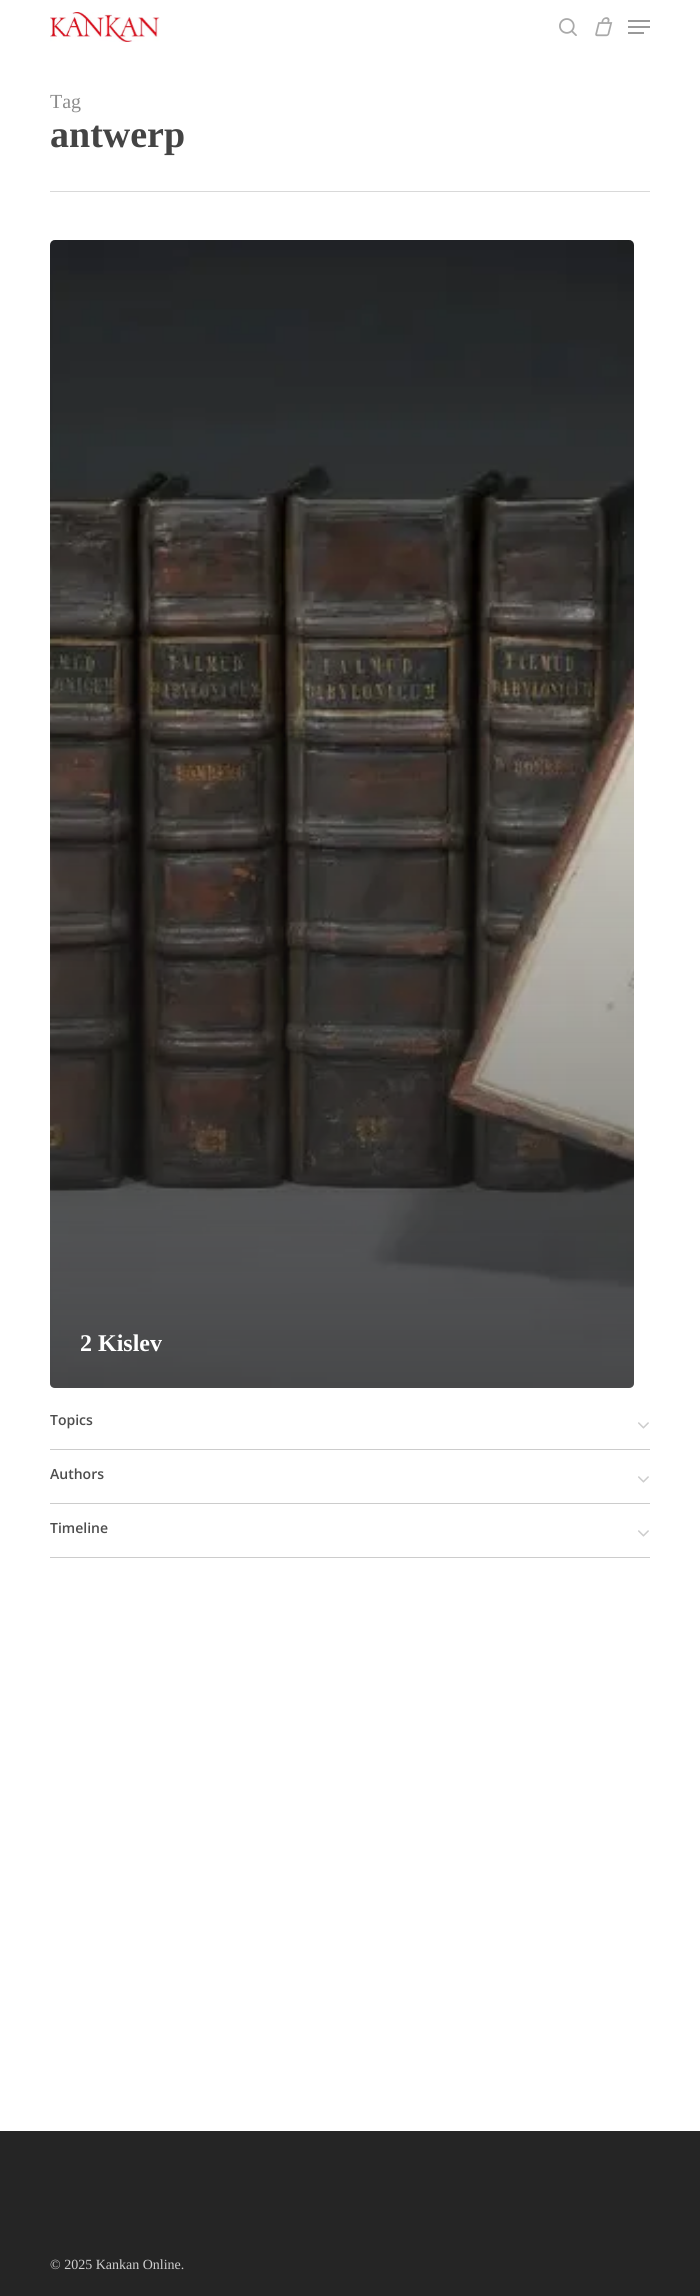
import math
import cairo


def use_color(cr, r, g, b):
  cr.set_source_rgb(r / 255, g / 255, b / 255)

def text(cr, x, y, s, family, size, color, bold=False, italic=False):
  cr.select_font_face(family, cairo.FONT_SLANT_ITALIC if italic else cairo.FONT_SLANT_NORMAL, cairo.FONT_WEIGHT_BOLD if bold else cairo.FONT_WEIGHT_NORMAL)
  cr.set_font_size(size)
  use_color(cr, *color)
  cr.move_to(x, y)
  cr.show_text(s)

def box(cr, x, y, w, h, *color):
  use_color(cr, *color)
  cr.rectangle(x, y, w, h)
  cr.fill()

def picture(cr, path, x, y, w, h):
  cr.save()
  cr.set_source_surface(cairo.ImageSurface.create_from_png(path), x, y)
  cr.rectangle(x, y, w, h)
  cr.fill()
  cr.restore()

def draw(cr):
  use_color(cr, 255, 255, 255)
  cr.paint()
  picture(cr, "img_01.png", 50, 12, 110, 30)
  picture(cr, "img_02.png", 559, 18, 18, 18)
  picture(cr, "img_03.png", 595, 17, 18, 20)
  box(cr, 628, 20, 22, 2, 153, 153, 153)
  box(cr, 628, 32, 16, 2, 153, 153, 153)
  box(cr, 628, 26, 22, 2, 153, 153, 153)
  box(cr, 50, 191, 600, 1, 217, 217, 217)
  picture(cr, "img_04.png", 50, 240, 584, 1148)
  gradient = cairo.LinearGradient(343, 528, 344, 1394)
  gradient.add_color_stop_rgba(0, 0.137, 0.137, 0.137, 0)
  gradient.add_color_stop_rgba(1, 0.137, 0.137, 0.137, 0.65)
  cr.set_source(gradient)
  cr.new_path()
  cr.move_to(50, 528)
  cr.line_to(634, 528)
  cr.line_to(634, 1383)
  cr.curve_to(634, 1386, 632, 1388, 629, 1388)
  cr.line_to(55, 1388)
  cr.curve_to(52, 1388, 50, 1386, 50, 1383)
  cr.close_path()
  cr.fill()
  box(cr, 50, 1449, 600, 1, 204, 204, 204)
  picture(cr, "img_05.png", 638, 1422, 11, 7)
  box(cr, 50, 1503, 600, 1, 204, 204, 204)
  picture(cr, "img_05.png", 638, 1476, 11, 7)
  box(cr, 50, 1557, 600, 1, 204, 204, 204)
  picture(cr, "img_05.png", 638, 1530, 11, 7)
  box(cr, 0, 2131, 700, 165, 37, 37, 37)
  text(cr, 50, 108, "Tag", "Liberation Serif", 20, (140, 140, 140))
  text(cr, 50, 147, "antwerp", "Liberation Serif", 38, (68, 68, 68), bold=True)
  text(cr, 80, 1351, "2 Kislev", "Liberation Serif", 24, (255, 255, 255), bold=True)
  text(cr, 50, 1425, "Topics", "Open Sans SemiBold", 14, (77, 77, 77))
  text(cr, 50, 1479, "Authors", "Open Sans SemiBold", 14, (77, 77, 77))
  text(cr, 50, 1533, "Timeline", "Open Sans SemiBold", 14, (77, 77, 77))
  text(cr, 50, 2269, "© 2025 Kankan Online.", "Liberation Serif", 14, (207, 207, 207))


surface = cairo.ImageSurface(cairo.FORMAT_RGB24, 700, 2296)
cr = cairo.Context(surface)
options = cairo.FontOptions()
options.set_hint_metrics(cairo.HINT_METRICS_OFF)
options.set_hint_style(cairo.HINT_STYLE_NONE)
cr.set_font_options(options)
cr.set_miter_limit(4)
draw(cr)
surface.write_to_png("out.png")
